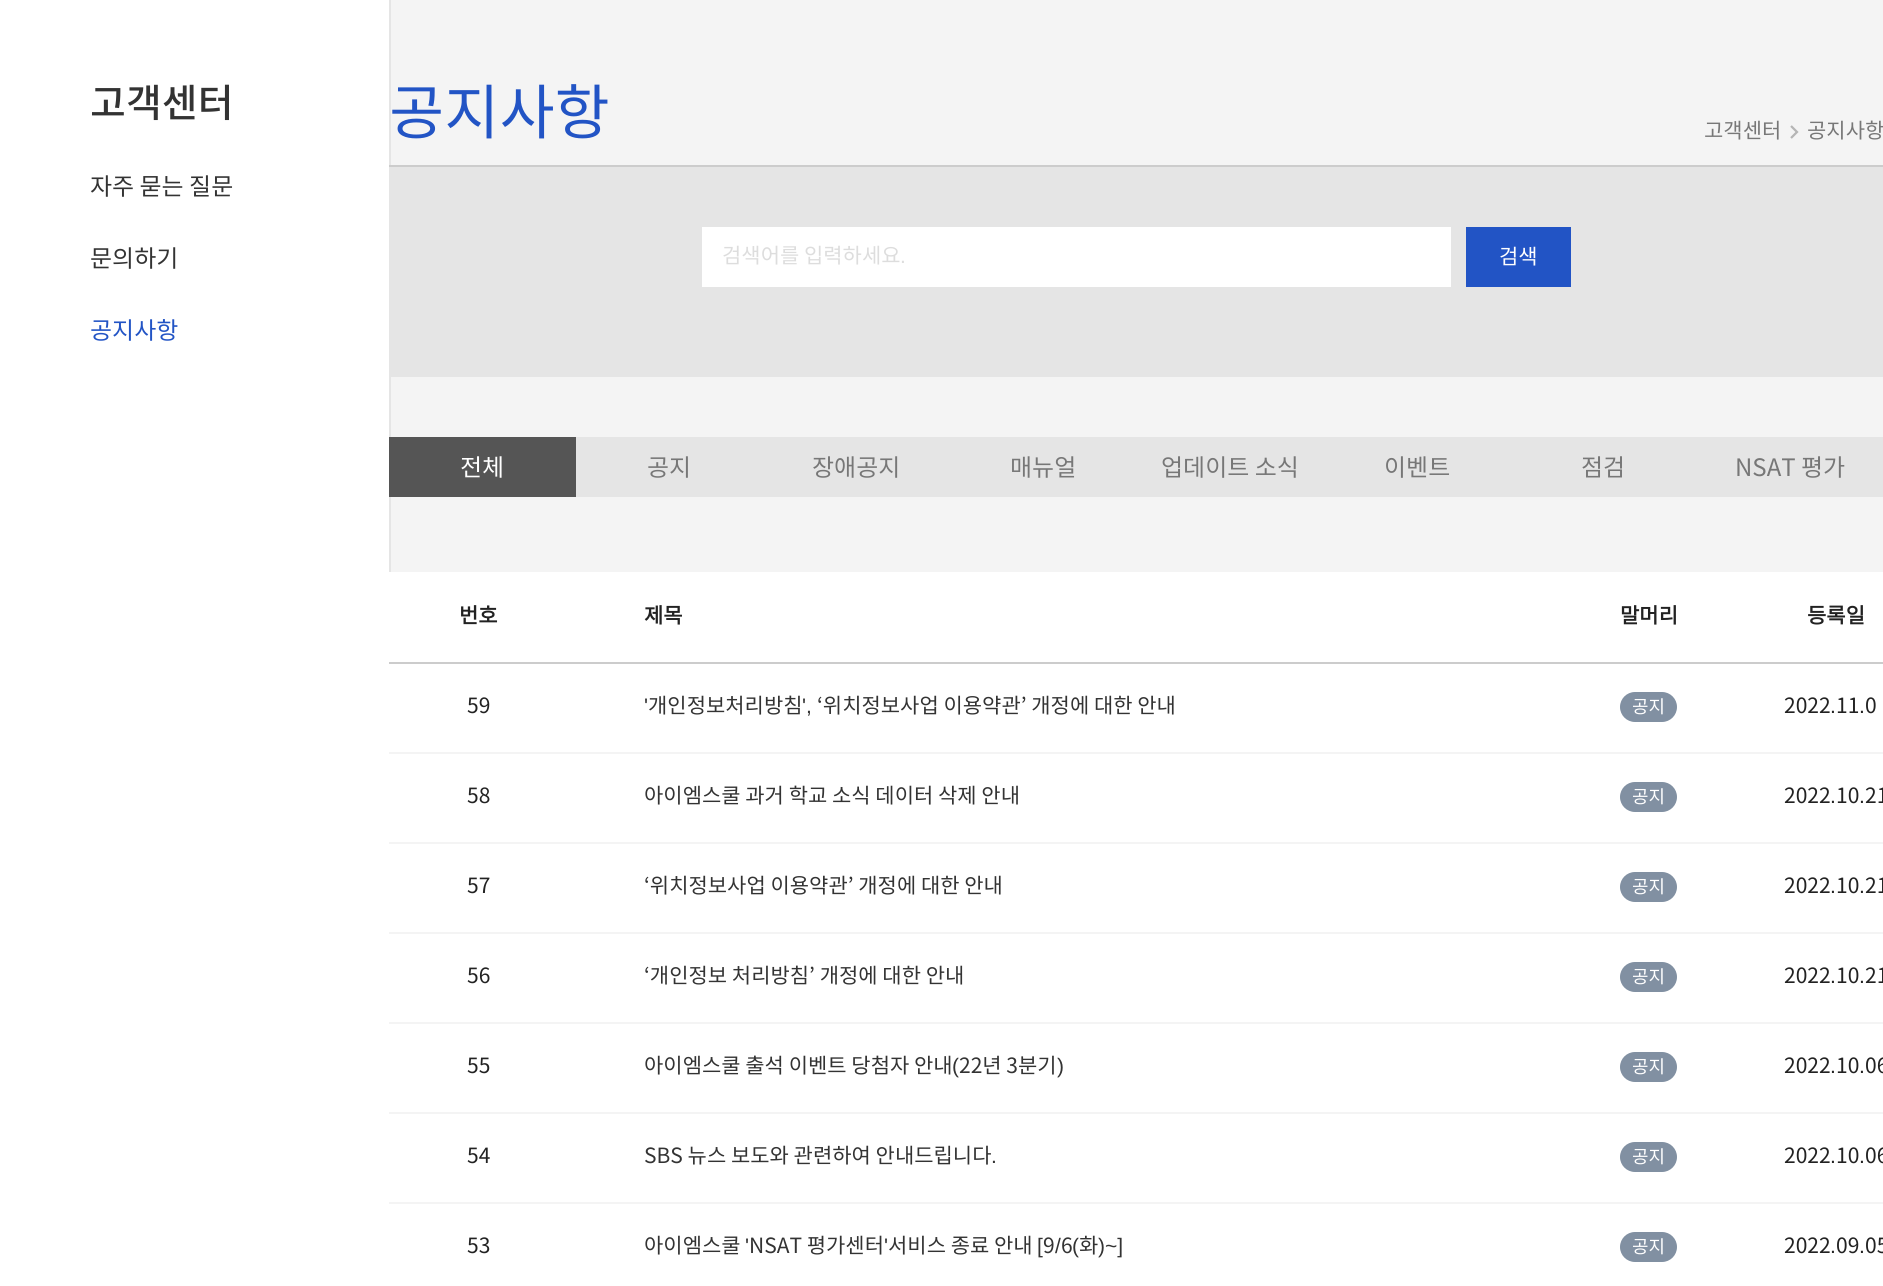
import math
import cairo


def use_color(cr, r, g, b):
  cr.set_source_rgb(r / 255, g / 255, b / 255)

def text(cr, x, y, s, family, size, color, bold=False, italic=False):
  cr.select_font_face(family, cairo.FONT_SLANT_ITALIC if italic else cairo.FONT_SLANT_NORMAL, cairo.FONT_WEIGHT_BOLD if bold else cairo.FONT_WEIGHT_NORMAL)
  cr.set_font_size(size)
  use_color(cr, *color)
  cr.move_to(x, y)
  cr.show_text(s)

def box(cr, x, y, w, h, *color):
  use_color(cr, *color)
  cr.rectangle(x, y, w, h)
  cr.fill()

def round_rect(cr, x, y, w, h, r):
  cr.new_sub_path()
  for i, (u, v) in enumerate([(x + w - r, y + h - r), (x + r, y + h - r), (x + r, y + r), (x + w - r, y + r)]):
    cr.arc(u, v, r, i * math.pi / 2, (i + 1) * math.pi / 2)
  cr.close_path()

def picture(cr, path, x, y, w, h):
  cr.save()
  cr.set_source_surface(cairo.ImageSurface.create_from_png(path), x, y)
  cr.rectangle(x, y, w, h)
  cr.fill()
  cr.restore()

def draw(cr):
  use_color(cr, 255, 255, 255)
  cr.paint()
  box(cr, 391, 0, 1492, 572, 244, 244, 244)
  box(cr, 389, 0, 2, 572, 229, 229, 229)
  picture(cr, "img_01.png", 1790, 125, 9, 14)
  box(cr, 389, 165, 1494, 2, 204, 204, 204)
  box(cr, 391, 167, 1492, 210, 229, 229, 229)
  box(cr, 702, 227, 749, 60, 255, 255, 255)
  box(cr, 1466, 227, 105, 60, 34, 84, 197)
  box(cr, 389, 437, 187, 60, 85, 85, 85)
  box(cr, 576, 437, 1307, 60, 229, 229, 229)
  box(cr, 389, 662, 1494, 2, 204, 204, 204)
  use_color(cr, 129, 144, 162)
  round_rect(cr, 1620, 692, 57, 30, 15)
  cr.fill()
  box(cr, 389, 752, 1494, 2, 244, 244, 244)
  use_color(cr, 129, 144, 162)
  round_rect(cr, 1620, 782, 57, 30, 15)
  cr.fill()
  box(cr, 389, 842, 1494, 2, 244, 244, 244)
  use_color(cr, 129, 144, 162)
  round_rect(cr, 1620, 872, 57, 30, 15)
  cr.fill()
  box(cr, 389, 932, 1494, 2, 244, 244, 244)
  use_color(cr, 129, 144, 162)
  round_rect(cr, 1620, 962, 57, 30, 15)
  cr.fill()
  box(cr, 389, 1022, 1494, 2, 244, 244, 244)
  use_color(cr, 129, 144, 162)
  round_rect(cr, 1620, 1052, 57, 30, 15)
  cr.fill()
  box(cr, 389, 1112, 1494, 2, 244, 244, 244)
  use_color(cr, 129, 144, 162)
  round_rect(cr, 1620, 1142, 57, 30, 15)
  cr.fill()
  box(cr, 389, 1202, 1494, 2, 244, 244, 244)
  use_color(cr, 129, 144, 162)
  round_rect(cr, 1620, 1232, 57, 30, 15)
  cr.fill()
  text(cr, 90, 117, "고객센터", "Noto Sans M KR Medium", 39, (51, 51, 51))
  text(cr, 90, 195, "자주 묻는 질문", "Noto Sans KR", 24, (51, 51, 51))
  text(cr, 90, 267, "문의하기", "Noto Sans KR", 24, (51, 51, 51))
  text(cr, 90, 339, "공지사항", "Noto Sans KR", 24, (34, 84, 197))
  text(cr, 389, 134, "공지사항", "Noto Sans KR", 60, (34, 84, 197))
  text(cr, 1704, 138, "고객센터", "Noto Sans KR", 21, (119, 119, 119))
  text(cr, 1807, 138, "공지사항", "Noto Sans KR", 21, (119, 119, 119))
  text(cr, 722, 263, "검색어를 입력하세요", "Noto Sans KR", 21, (221, 221, 221))
  text(cr, 900, 263, ".", "Liberation Sans", 21, (221, 221, 221))
  text(cr, 1499, 264, "검색", "Noto Sans KR", 21, (255, 255, 255))
  text(cr, 460, 476, "전체", "Noto Sans KR", 24, (255, 255, 255))
  text(cr, 647, 476, "공지", "Noto Sans KR", 24, (119, 119, 119))
  text(cr, 812, 476, "장애공지", "Noto Sans KR", 24, (119, 119, 119))
  text(cr, 1010, 476, "매뉴얼", "Noto Sans KR", 24, (119, 119, 119))
  text(cr, 1161, 476, "업데이트 소식", "Noto Sans KR", 24, (119, 119, 119))
  text(cr, 1384, 476, "이벤트", "Noto Sans KR", 24, (119, 119, 119))
  text(cr, 1581, 476, "점검", "Noto Sans KR", 24, (119, 119, 119))
  text(cr, 1735, 476, "NSAT 평가", "Noto Sans KR", 24, (119, 119, 119))
  text(cr, 459, 623, "번호", "Noto Sans KR", 21, (34, 34, 34), bold=True)
  text(cr, 644, 623, "제목", "Noto Sans KR", 21, (34, 34, 34), bold=True)
  text(cr, 1620, 623, "말머리", "Noto Sans KR", 21, (34, 34, 34), bold=True)
  text(cr, 1807, 623, "등록일", "Noto Sans KR", 21, (34, 34, 34), bold=True)
  text(cr, 467, 713, "59", "Noto Sans KR", 21, (34, 34, 34))
  text(cr, 644, 713, "'", "Liberation Sans", 21, (51, 51, 51))
  text(cr, 648, 713, "개인정보처리방침", "Noto Sans KR", 21, (51, 51, 51))
  text(cr, 802, 713, "',", "Liberation Sans", 21, (51, 51, 51))
  text(cr, 817, 713, "‘위치정보사업 이용약관’ 개정에 대한 안내", "Noto Sans KR", 21, (51, 51, 51))
  text(cr, 1632, 713, "공지", "Noto Sans KR", 18, (255, 255, 255))
  text(cr, 1784, 713, "2022", "Noto Sans KR", 21, (34, 34, 34))
  text(cr, 1830, 713, ".", "Liberation Sans", 21, (34, 34, 34))
  text(cr, 1836, 713, "11", "Noto Sans KR", 21, (34, 34, 34))
  text(cr, 1859, 713, ".", "Liberation Sans", 21, (34, 34, 34))
  text(cr, 1865, 713, "0", "Noto Sans KR", 21, (34, 34, 34))
  text(cr, 467, 803, "58", "Noto Sans KR", 21, (34, 34, 34))
  text(cr, 644, 803, "아이엠스쿨 과거 학교 소식 데이터 삭제 안내", "Noto Sans KR", 21, (51, 51, 51))
  text(cr, 1632, 803, "공지", "Noto Sans KR", 18, (255, 255, 255))
  text(cr, 1784, 803, "2022", "Noto Sans KR", 21, (34, 34, 34))
  text(cr, 1830, 803, ".", "Liberation Sans", 21, (34, 34, 34))
  text(cr, 1836, 803, "10", "Noto Sans KR", 21, (34, 34, 34))
  text(cr, 1859, 803, ".", "Liberation Sans", 21, (34, 34, 34))
  text(cr, 1865, 803, "21", "Noto Sans KR", 21, (34, 34, 34))
  text(cr, 467, 893, "57", "Noto Sans KR", 21, (34, 34, 34))
  text(cr, 644, 893, "‘위치정보사업 이용약관’ 개정에 대한 안내", "Noto Sans KR", 21, (51, 51, 51))
  text(cr, 1632, 893, "공지", "Noto Sans KR", 18, (255, 255, 255))
  text(cr, 1784, 893, "2022", "Noto Sans KR", 21, (34, 34, 34))
  text(cr, 1830, 893, ".", "Liberation Sans", 21, (34, 34, 34))
  text(cr, 1836, 893, "10", "Noto Sans KR", 21, (34, 34, 34))
  text(cr, 1859, 893, ".", "Liberation Sans", 21, (34, 34, 34))
  text(cr, 1865, 893, "21", "Noto Sans KR", 21, (34, 34, 34))
  text(cr, 467, 983, "56", "Noto Sans KR", 21, (34, 34, 34))
  text(cr, 644, 983, "‘개인정보 처리방침’ 개정에 대한 안내", "Noto Sans KR", 21, (51, 51, 51))
  text(cr, 1632, 983, "공지", "Noto Sans KR", 18, (255, 255, 255))
  text(cr, 1784, 983, "2022", "Noto Sans KR", 21, (34, 34, 34))
  text(cr, 1830, 983, ".", "Liberation Sans", 21, (34, 34, 34))
  text(cr, 1836, 983, "10", "Noto Sans KR", 21, (34, 34, 34))
  text(cr, 1859, 983, ".", "Liberation Sans", 21, (34, 34, 34))
  text(cr, 1865, 983, "21", "Noto Sans KR", 21, (34, 34, 34))
  text(cr, 467, 1073, "55", "Noto Sans KR", 21, (34, 34, 34))
  text(cr, 644, 1073, "아이엠스쿨 출석 이벤트 당첨자 안내", "Noto Sans KR", 21, (51, 51, 51))
  text(cr, 952, 1073, "(", "Liberation Sans", 21, (51, 51, 51))
  text(cr, 959, 1073, "22년 3분기", "Noto Sans KR", 21, (51, 51, 51))
  text(cr, 1057, 1073, ")", "Liberation Sans", 21, (51, 51, 51))
  text(cr, 1632, 1073, "공지", "Noto Sans KR", 18, (255, 255, 255))
  text(cr, 1784, 1073, "2022", "Noto Sans KR", 21, (34, 34, 34))
  text(cr, 1830, 1073, ".", "Liberation Sans", 21, (34, 34, 34))
  text(cr, 1836, 1073, "10", "Noto Sans KR", 21, (34, 34, 34))
  text(cr, 1859, 1073, ".", "Liberation Sans", 21, (34, 34, 34))
  text(cr, 1865, 1073, "06", "Noto Sans KR", 21, (34, 34, 34))
  text(cr, 467, 1163, "54", "Noto Sans KR", 21, (34, 34, 34))
  text(cr, 644, 1163, "SBS 뉴스 보도와 관련하여 안내드립니다", "Noto Sans KR", 21, (51, 51, 51))
  text(cr, 991, 1163, ".", "Liberation Sans", 21, (51, 51, 51))
  text(cr, 1632, 1163, "공지", "Noto Sans KR", 18, (255, 255, 255))
  text(cr, 1784, 1163, "2022", "Noto Sans KR", 21, (34, 34, 34))
  text(cr, 1830, 1163, ".", "Liberation Sans", 21, (34, 34, 34))
  text(cr, 1836, 1163, "10", "Noto Sans KR", 21, (34, 34, 34))
  text(cr, 1859, 1163, ".", "Liberation Sans", 21, (34, 34, 34))
  text(cr, 1865, 1163, "06", "Noto Sans KR", 21, (34, 34, 34))
  text(cr, 467, 1253, "53", "Noto Sans KR", 21, (34, 34, 34))
  text(cr, 644, 1253, "아이엠스쿨", "Noto Sans KR", 21, (51, 51, 51))
  text(cr, 745, 1253, "'", "Liberation Sans", 21, (51, 51, 51))
  text(cr, 749, 1253, "NSAT 평가센터", "Noto Sans KR", 21, (51, 51, 51))
  text(cr, 884, 1253, "'", "Liberation Sans", 21, (51, 51, 51))
  text(cr, 888, 1253, "서비스 종료 안내", "Noto Sans KR", 21, (51, 51, 51))
  text(cr, 1037, 1253, "[", "Liberation Sans", 21, (51, 51, 51))
  text(cr, 1043, 1253, "9", "Noto Sans KR", 21, (51, 51, 51))
  text(cr, 1055, 1253, "/", "Liberation Sans", 21, (51, 51, 51))
  text(cr, 1061, 1253, "6", "Noto Sans KR", 21, (51, 51, 51))
  text(cr, 1072, 1253, "(", "Liberation Sans", 21, (51, 51, 51))
  text(cr, 1079, 1253, "화", "Noto Sans KR", 21, (51, 51, 51))
  text(cr, 1098, 1253, ")~]", "Liberation Sans", 21, (51, 51, 51))
  text(cr, 1632, 1253, "공지", "Noto Sans KR", 18, (255, 255, 255))
  text(cr, 1784, 1253, "2022", "Noto Sans KR", 21, (34, 34, 34))
  text(cr, 1830, 1253, ".", "Liberation Sans", 21, (34, 34, 34))
  text(cr, 1836, 1253, "09", "Noto Sans KR", 21, (34, 34, 34))
  text(cr, 1859, 1253, ".", "Liberation Sans", 21, (34, 34, 34))
  text(cr, 1865, 1253, "05", "Noto Sans KR", 21, (34, 34, 34))


surface = cairo.ImageSurface(cairo.FORMAT_RGB24, 1883, 1286)
cr = cairo.Context(surface)
options = cairo.FontOptions()
options.set_hint_metrics(cairo.HINT_METRICS_OFF)
options.set_hint_style(cairo.HINT_STYLE_NONE)
cr.set_font_options(options)
cr.set_miter_limit(4)
draw(cr)
surface.write_to_png("out.png")
